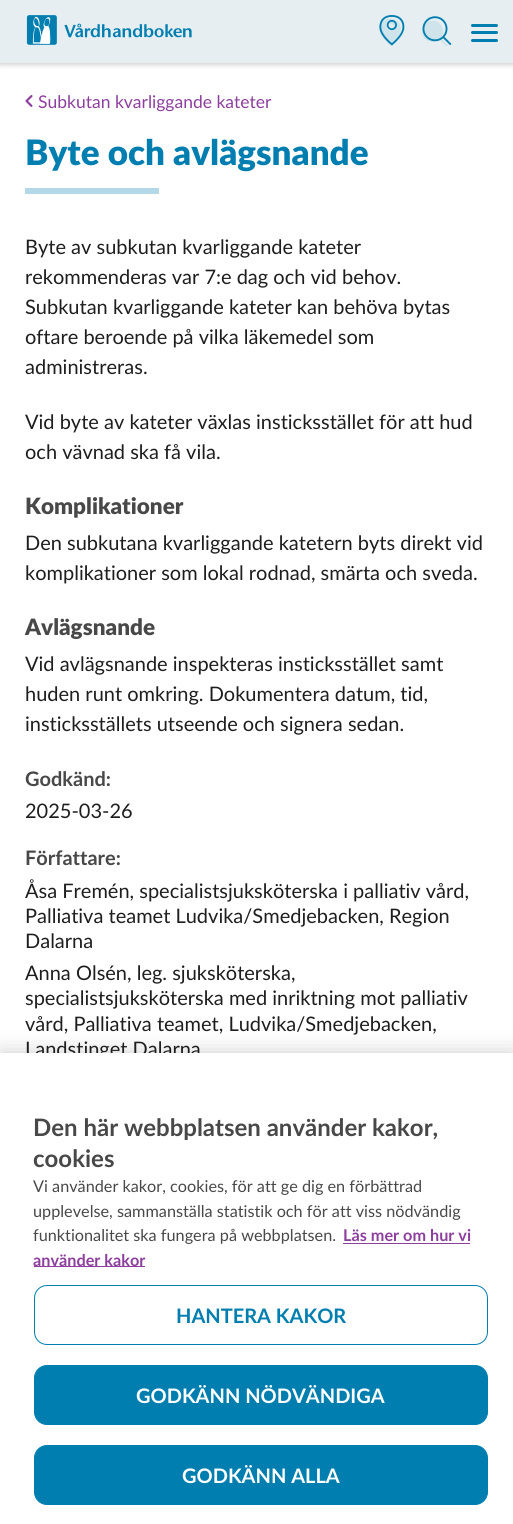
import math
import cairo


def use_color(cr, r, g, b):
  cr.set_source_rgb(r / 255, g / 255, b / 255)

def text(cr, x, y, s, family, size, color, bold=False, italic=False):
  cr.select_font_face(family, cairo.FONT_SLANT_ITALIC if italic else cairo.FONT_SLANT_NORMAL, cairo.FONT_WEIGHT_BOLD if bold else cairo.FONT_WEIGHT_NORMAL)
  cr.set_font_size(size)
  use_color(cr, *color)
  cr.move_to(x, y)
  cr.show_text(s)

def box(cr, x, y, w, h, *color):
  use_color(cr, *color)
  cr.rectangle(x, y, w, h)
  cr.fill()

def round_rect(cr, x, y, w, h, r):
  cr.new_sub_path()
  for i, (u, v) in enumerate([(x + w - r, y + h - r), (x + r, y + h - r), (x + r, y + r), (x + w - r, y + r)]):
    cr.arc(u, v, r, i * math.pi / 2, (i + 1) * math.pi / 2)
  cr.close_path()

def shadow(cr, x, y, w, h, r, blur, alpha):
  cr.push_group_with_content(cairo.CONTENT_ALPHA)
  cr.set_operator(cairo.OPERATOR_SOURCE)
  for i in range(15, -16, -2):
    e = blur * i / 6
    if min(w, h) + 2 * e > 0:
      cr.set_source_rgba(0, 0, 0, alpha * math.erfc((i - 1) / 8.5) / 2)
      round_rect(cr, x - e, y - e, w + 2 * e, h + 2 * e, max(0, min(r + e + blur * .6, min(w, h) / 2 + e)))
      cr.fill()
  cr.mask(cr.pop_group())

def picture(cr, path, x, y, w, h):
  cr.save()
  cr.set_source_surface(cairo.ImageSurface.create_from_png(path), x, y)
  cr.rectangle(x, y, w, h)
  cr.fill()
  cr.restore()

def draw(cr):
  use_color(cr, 255, 255, 255)
  cr.paint()
  cr.save()
  cr.set_fill_rule(cairo.FILL_RULE_EVEN_ODD)
  cr.new_path()
  cr.move_to(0, 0)
  cr.line_to(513, 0)
  cr.line_to(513, 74)
  cr.line_to(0, 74)
  cr.close_path()
  cr.move_to(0, 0)
  cr.line_to(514, 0)
  cr.line_to(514, 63)
  cr.line_to(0, 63)
  cr.close_path()
  cr.clip()
  use_color(cr, 30, 30, 30)
  shadow(cr, 0, 3, 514, 62, 0, 2.5, 0.2)
  cr.restore()
  cr.set_source_rgba(0, 0.322, 0.502, 0.1)
  cr.rectangle(0, 0, 513, 63)
  cr.fill()
  picture(cr, "img_01.png", 26, 15, 166, 30)
  picture(cr, "img_02.png", 379, 15, 26, 31)
  picture(cr, "img_03.png", 422, 16, 30, 30)
  use_color(cr, 0, 126, 176)
  round_rect(cr, 471, 31, 27, 3, 1.5)
  cr.fill()
  round_rect(cr, 471, 24, 27, 3, 1.5)
  cr.fill()
  round_rect(cr, 471, 39, 27, 3, 1.5)
  cr.fill()
  picture(cr, "img_04.png", 25, 95, 8, 12)
  box(cr, 25, 188, 134, 6, 179, 216, 231)
  use_color(cr, 0, 0, 0)
  shadow(cr, 0, 1053, 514, 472, 0, 11, 0.2)
  text(cr, 38, 108, "Subkutan kvarliggande kateter", "Lato", 17.5, (141, 63, 158))
  text(cr, 25, 165, "Byte och avlägsnande", "Lato ExtraBold", 35, (0, 126, 176))
  text(cr, 25, 254, "Byte av subkutan kvarliggande kateter", "Lato", 20, (30, 30, 30))
  text(cr, 25, 284, "rekommenderas var 7:e dag och vid behov.", "Lato", 20, (30, 30, 30))
  text(cr, 25, 314, "Subkutan kvarliggande kateter kan behöva bytas", "Lato", 20, (30, 30, 30))
  text(cr, 25, 344, "oftare beroende på vilka läkemedel som", "Lato", 20, (30, 30, 30))
  text(cr, 25, 374, "administreras.", "Lato", 20, (30, 30, 30))
  text(cr, 25, 429, "Vid byte av kateter växlas insticksstället för att hud", "Lato", 20, (30, 30, 30))
  text(cr, 25, 459, "och vävnad ska få vila.", "Lato", 20, (30, 30, 30))
  text(cr, 25, 514, "Komplikationer", "Lato ExtraBold", 22.5, (72, 72, 72))
  text(cr, 25, 550, "Den subkutana kvarliggande katetern byts direkt vid", "Lato", 20, (30, 30, 30))
  text(cr, 25, 580, "komplikationer som lokal rodnad, smärta och sveda.", "Lato", 20, (30, 30, 30))
  text(cr, 25, 635, "Avlägsnande", "Lato ExtraBold", 22.5, (72, 72, 72))
  text(cr, 25, 671, "Vid avlägsnande inspekteras insticksstället samt", "Lato", 20, (30, 30, 30))
  text(cr, 25, 701, "huden runt omkring. Dokumentera datum, tid,", "Lato", 20, (30, 30, 30))
  text(cr, 25, 731, "insticksställets utseende och signera sedan.", "Lato", 20, (30, 30, 30))
  text(cr, 25, 786, "Godkänd:", "Lato", 20, (72, 72, 72), bold=True)
  text(cr, 25, 818, "2025-03-26", "Lato", 20, (30, 30, 30))
  text(cr, 25, 865, "Författare:", "Lato", 20, (72, 72, 72), bold=True)
  text(cr, 25, 898, "Åsa Fremén, specialistsjuksköterska i palliativ vård,", "Lato", 20, (30, 30, 30))
  text(cr, 25, 923, "Palliativa teamet Ludvika/Smedjebacken, Region", "Lato", 20, (30, 30, 30))
  text(cr, 25, 948, "Dalarna", "Lato", 20, (30, 30, 30))
  text(cr, 25, 980, "Anna Olsén, leg. sjuksköterska,", "Lato", 20, (30, 30, 30))
  text(cr, 25, 1005, "specialistsjuksköterska med inriktning mot palliativ", "Lato", 20, (30, 30, 30))
  text(cr, 25, 1031, "vård, Palliativa teamet, Ludvika/Smedjebacken,", "Lato", 20, (30, 30, 30))
  text(cr, 25, 1056, "Landstinget Dalarna", "Lato", 20, (30, 30, 30))
  box(cr, 0, 1053, 513, 471, 255, 255, 255)
  text(cr, 33, 1136, "Den här webbplatsen använder kakor,", "Lato", 24, (72, 72, 72), bold=True)
  text(cr, 33, 1167, "cookies", "Lato", 24, (72, 72, 72), bold=True)
  text(cr, 33, 1192, "Vi använder kakor, cookies, för att ge dig en förbättrad", "Lato", 16.25, (72, 72, 72))
  text(cr, 33, 1217, "upplevelse, sammanställa statistik och för att viss nödvändig", "Lato", 16.25, (72, 72, 72))
  text(cr, 33, 1241, "funktionalitet ska fungera på webbplatsen.", "Lato", 16.25, (72, 72, 72))
  text(cr, 343, 1241, "Läs mer om hur vi", "Lato", 16.25, (141, 63, 158), bold=True)
  box(cr, 343, 1243, 127, 1, 141, 63, 158)
  box(cr, 34, 1266, 111, 1, 141, 63, 158)
  text(cr, 33, 1266, "använder kakor", "Lato", 16.25, (141, 63, 158), bold=True)
  round_rect(cr, 34.5, 1285.5, 453, 59, 12.5)
  use_color(cr, 0, 126, 176)
  cr.set_line_width(1)
  cr.stroke()
  text(cr, 176, 1323, "HANTERA KAKOR", "Lato", 20, (0, 126, 176), bold=True)
  round_rect(cr, 34.5, 1365.5, 453, 59, 12.5)
  cr.fill_preserve()
  cr.stroke()
  text(cr, 136, 1403, "GODKÄNN NÖDVÄNDIGA", "Lato", 20, (255, 255, 255), bold=True)
  use_color(cr, 0, 126, 176)
  round_rect(cr, 34.5, 1445.5, 453, 59, 12.5)
  cr.fill_preserve()
  cr.stroke()
  text(cr, 182, 1483, "GODKÄNN ALLA", "Lato", 20, (255, 255, 255), bold=True)


surface = cairo.ImageSurface(cairo.FORMAT_RGB24, 513, 1524)
cr = cairo.Context(surface)
options = cairo.FontOptions()
options.set_hint_metrics(cairo.HINT_METRICS_OFF)
options.set_hint_style(cairo.HINT_STYLE_NONE)
cr.set_font_options(options)
cr.set_miter_limit(4)
draw(cr)
surface.write_to_png("out.png")
